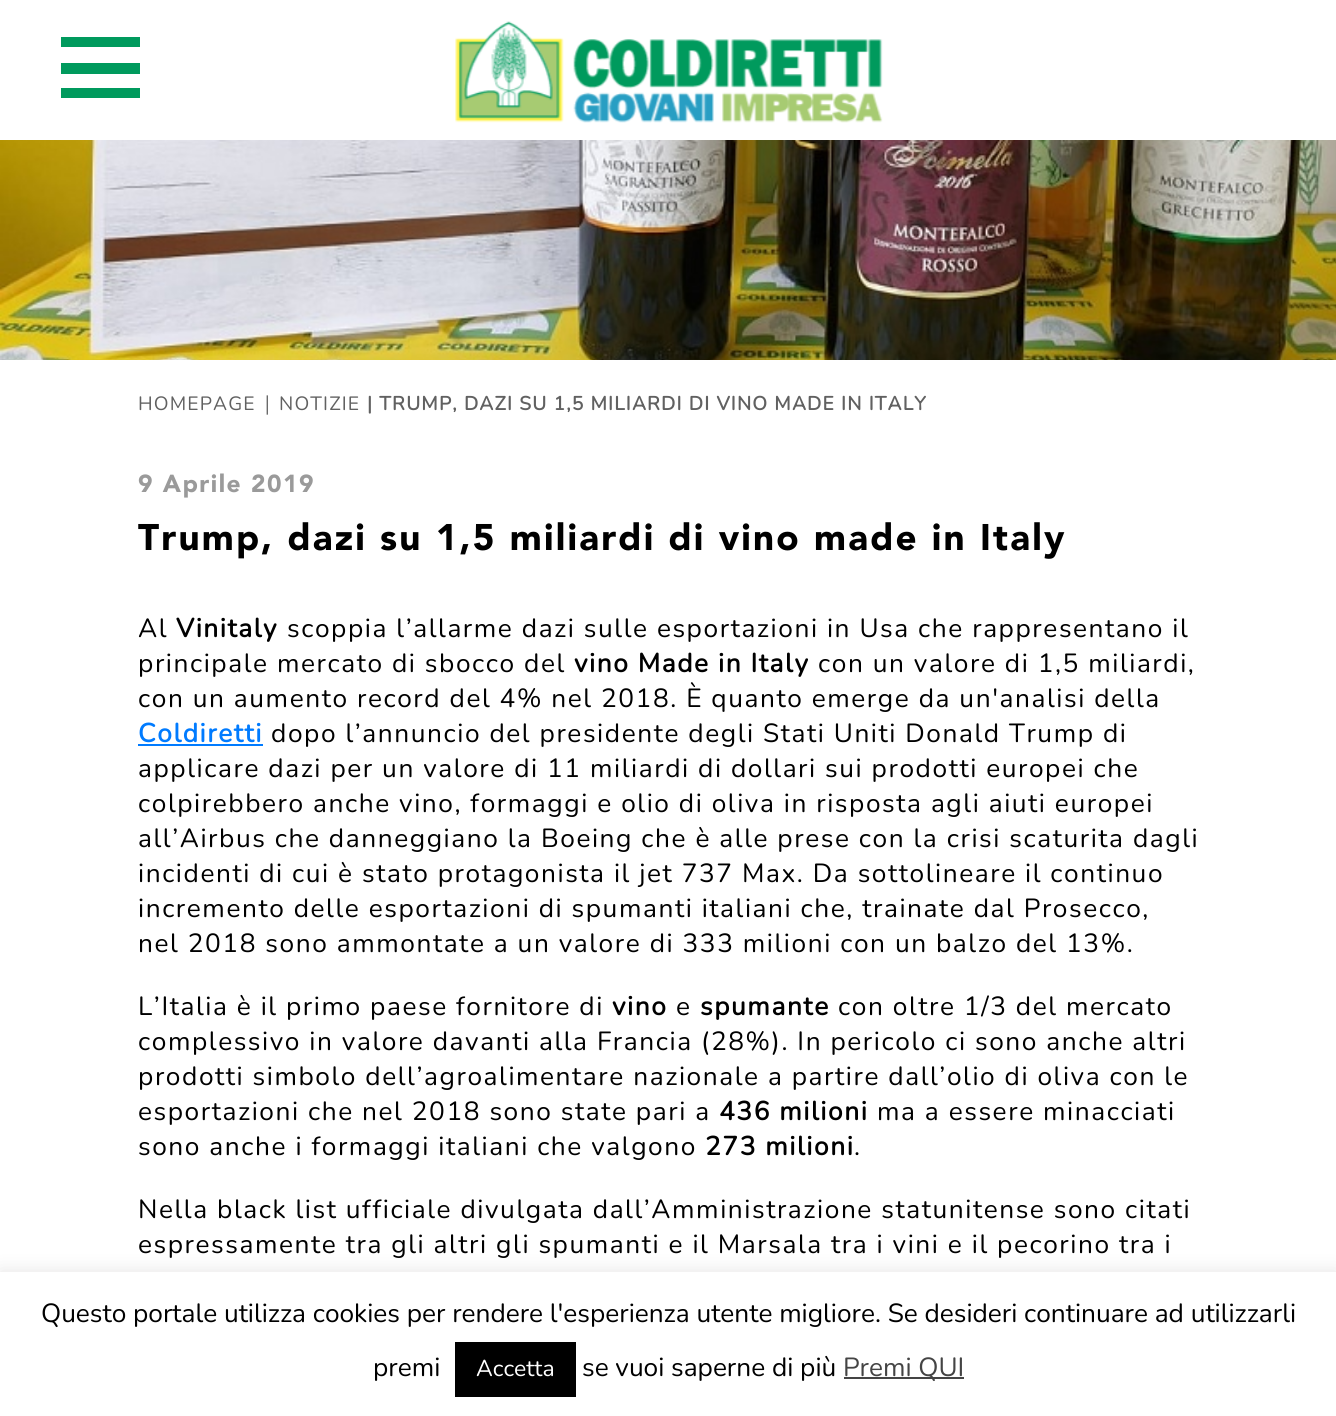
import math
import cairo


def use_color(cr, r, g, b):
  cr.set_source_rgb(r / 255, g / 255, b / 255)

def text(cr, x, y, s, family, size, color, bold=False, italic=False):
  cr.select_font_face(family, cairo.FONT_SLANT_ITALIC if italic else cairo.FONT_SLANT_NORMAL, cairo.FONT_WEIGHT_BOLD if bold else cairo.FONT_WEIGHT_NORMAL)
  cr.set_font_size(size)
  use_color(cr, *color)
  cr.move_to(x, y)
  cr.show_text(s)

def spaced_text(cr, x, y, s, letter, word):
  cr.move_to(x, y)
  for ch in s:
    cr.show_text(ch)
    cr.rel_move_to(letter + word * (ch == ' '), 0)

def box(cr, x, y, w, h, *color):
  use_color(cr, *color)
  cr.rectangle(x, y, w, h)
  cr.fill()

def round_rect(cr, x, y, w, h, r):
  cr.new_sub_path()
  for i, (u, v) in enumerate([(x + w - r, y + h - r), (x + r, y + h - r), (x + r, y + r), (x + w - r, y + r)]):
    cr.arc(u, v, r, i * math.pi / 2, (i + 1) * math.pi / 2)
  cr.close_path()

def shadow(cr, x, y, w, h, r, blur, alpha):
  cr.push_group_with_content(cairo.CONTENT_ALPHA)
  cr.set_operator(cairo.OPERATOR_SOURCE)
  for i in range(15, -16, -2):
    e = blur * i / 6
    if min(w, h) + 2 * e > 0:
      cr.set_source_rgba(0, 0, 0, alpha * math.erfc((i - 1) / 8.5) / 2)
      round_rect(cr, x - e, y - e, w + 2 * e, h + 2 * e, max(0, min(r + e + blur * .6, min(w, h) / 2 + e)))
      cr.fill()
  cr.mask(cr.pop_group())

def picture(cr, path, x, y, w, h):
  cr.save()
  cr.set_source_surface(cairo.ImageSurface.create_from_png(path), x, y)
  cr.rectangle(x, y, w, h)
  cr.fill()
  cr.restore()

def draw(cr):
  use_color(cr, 255, 255, 255)
  cr.paint()
  box(cr, 61, 37, 79, 10, 0, 154, 93)
  box(cr, 61, 63, 79, 11, 0, 154, 93)
  box(cr, 61, 88, 79, 10, 0, 154, 93)
  picture(cr, "img_01.png", 455, 21, 428, 102)
  picture(cr, "img_02.png", 0, 140, 1336, 220)
  box(cr, 138, 744, 125, 2, 0, 123, 255)
  use_color(cr, 172, 171, 171)
  shadow(cr, 0, 1271, 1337, 145, 0, 9, 0.3)
  box(cr, 0, 1272, 1336, 144, 255, 255, 255)
  box(cr, 455, 1342, 121, 55, 0, 0, 0)
  box(cr, 844, 1377, 120, 2, 68, 68, 68)
  cr.select_font_face("Nunito ExtraLight")
  cr.set_font_size(19.25)
  use_color(cr, 97, 97, 97)
  spaced_text(cr, 138, 410, "HOMEPAGE", 1.15, 0)
  cr.select_font_face("Open Sans")
  spaced_text(cr, 262, 410, "|", 1.15, 0)
  cr.select_font_face("Nunito ExtraLight")
  spaced_text(cr, 279, 410, "NOTIZIE", 1.15, 0)
  cr.select_font_face("Nunito", cairo.FONT_SLANT_NORMAL, cairo.FONT_WEIGHT_BOLD)
  spaced_text(cr, 367, 410, "| TRUMP, DAZI SU 1,5 MILIARDI DI VINO MADE IN ITALY", 1.15, 0)
  cr.select_font_face("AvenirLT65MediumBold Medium")
  cr.set_font_size(24.5)
  use_color(cr, 154, 154, 154)
  spaced_text(cr, 138, 492, "9 Aprile 2019", 1.5, 0)
  cr.set_font_size(36.75)
  use_color(cr, 0, 0, 0)
  spaced_text(cr, 138, 550, "Trump, dazi su 1,5 miliardi di vino made in Italy", 2.2, 0)
  cr.select_font_face("Nunito ExtraLight")
  cr.set_font_size(26.25)
  spaced_text(cr, 138, 637, "Al", 1.57, 0)
  cr.select_font_face("Nunito", cairo.FONT_SLANT_NORMAL, cairo.FONT_WEIGHT_BOLD)
  spaced_text(cr, 176, 637, "Vinitaly", 1.57, 0)
  cr.select_font_face("Nunito ExtraLight")
  spaced_text(cr, 287, 637, "scoppia l’allarme dazi sulle esportazioni in Usa che rappresentano il", 1.57, 0)
  spaced_text(cr, 138, 672, "principale mercato di sbocco del", 1.57, 0)
  cr.select_font_face("Nunito", cairo.FONT_SLANT_NORMAL, cairo.FONT_WEIGHT_BOLD)
  spaced_text(cr, 574, 672, "vino Made in Italy", 1.57, 0)
  cr.select_font_face("Nunito ExtraLight")
  spaced_text(cr, 818, 672, "con un valore di 1,5 miliardi,", 1.57, 0)
  spaced_text(cr, 138, 707, "con un aumento record del 4% nel 2018. È quanto emerge da un'analisi della", 1.57, 0)
  cr.select_font_face("Nunito", cairo.FONT_SLANT_NORMAL, cairo.FONT_WEIGHT_BOLD)
  use_color(cr, 0, 123, 255)
  spaced_text(cr, 138, 742, "Coldiretti", 1.57, 0)
  cr.select_font_face("Nunito ExtraLight")
  use_color(cr, 0, 0, 0)
  spaced_text(cr, 271, 742, "dopo l’annuncio del presidente degli Stati Uniti Donald Trump di", 1.57, 0)
  spaced_text(cr, 138, 777, "applicare dazi per un valore di 11 miliardi di dollari sui prodotti europei che", 1.57, 0)
  spaced_text(cr, 138, 812, "colpirebbero anche vino, formaggi e olio di oliva in risposta agli aiuti europei", 1.57, 0)
  spaced_text(cr, 138, 847, "all’Airbus che danneggiano la Boeing che è alle prese con la crisi scaturita dagli", 1.57, 0)
  spaced_text(cr, 138, 882, "incidenti di cui è stato protagonista il jet 737 Max. Da sottolineare il continuo", 1.57, 0)
  spaced_text(cr, 138, 917, "incremento delle esportazioni di spumanti italiani che, trainate dal Prosecco,", 1.57, 0)
  spaced_text(cr, 138, 952, "nel 2018 sono ammontate a un valore di 333 milioni con un balzo del 13%.", 1.57, 0)
  spaced_text(cr, 138, 1015, "L’Italia è il primo paese fornitore di", 1.57, 0)
  cr.select_font_face("Nunito", cairo.FONT_SLANT_NORMAL, cairo.FONT_WEIGHT_BOLD)
  spaced_text(cr, 612, 1015, "vino", 1.57, 0)
  cr.select_font_face("Nunito ExtraLight")
  spaced_text(cr, 676, 1015, "e", 1.57, 0)
  cr.select_font_face("Nunito", cairo.FONT_SLANT_NORMAL, cairo.FONT_WEIGHT_BOLD)
  spaced_text(cr, 700, 1015, "spumante", 1.57, 0)
  cr.select_font_face("Nunito ExtraLight")
  spaced_text(cr, 838, 1015, "con oltre 1/3 del mercato", 1.57, 0)
  spaced_text(cr, 138, 1050, "complessivo in valore davanti alla Francia (28%). In pericolo ci sono anche altri", 1.57, 0)
  spaced_text(cr, 138, 1085, "prodotti simbolo dell’agroalimentare nazionale a partire dall’olio di oliva con le", 1.57, 0)
  spaced_text(cr, 138, 1120, "esportazioni che nel 2018 sono state pari a", 1.57, 0)
  cr.select_font_face("Nunito", cairo.FONT_SLANT_NORMAL, cairo.FONT_WEIGHT_BOLD)
  spaced_text(cr, 719, 1120, "436 milioni", 1.57, 0)
  cr.select_font_face("Nunito ExtraLight")
  spaced_text(cr, 877, 1120, "ma a essere minacciati", 1.57, 0)
  spaced_text(cr, 138, 1155, "sono anche i formaggi italiani che valgono", 1.57, 0)
  cr.select_font_face("Nunito", cairo.FONT_SLANT_NORMAL, cairo.FONT_WEIGHT_BOLD)
  spaced_text(cr, 705, 1155, "273 milioni", 1.57, 0)
  cr.select_font_face("Nunito ExtraLight")
  spaced_text(cr, 854, 1155, ".", 1.57, 0)
  spaced_text(cr, 138, 1218, "Nella black list ufficiale divulgata dall’Amministrazione statunitense sono citati", 1.57, 0)
  spaced_text(cr, 138, 1253, "espressamente tra gli altri gli spumanti e il Marsala tra i vini e il pecorino tra i", 1.57, 0)
  text(cr, 41, 1322, "Questo portale utilizza cookies per rendere l'esperienza utente migliore. Se desideri continuare ad utilizzarli", "Nunito ExtraLight", 26.25, (0, 0, 0))
  text(cr, 373, 1376, "premi", "Nunito ExtraLight", 26.25, (0, 0, 0))
  text(cr, 476, 1376, "Accetta", "Nunito ExtraLight", 23, (255, 255, 255))
  text(cr, 582, 1376, "se vuoi saperne di più", "Nunito ExtraLight", 26.25, (0, 0, 0))
  text(cr, 843, 1376, "Premi QUI", "Nunito ExtraLight", 26.25, (68, 68, 68))


surface = cairo.ImageSurface(cairo.FORMAT_RGB24, 1336, 1416)
cr = cairo.Context(surface)
options = cairo.FontOptions()
options.set_hint_metrics(cairo.HINT_METRICS_OFF)
options.set_hint_style(cairo.HINT_STYLE_NONE)
cr.set_font_options(options)
cr.set_miter_limit(4)
draw(cr)
surface.write_to_png("out.png")
